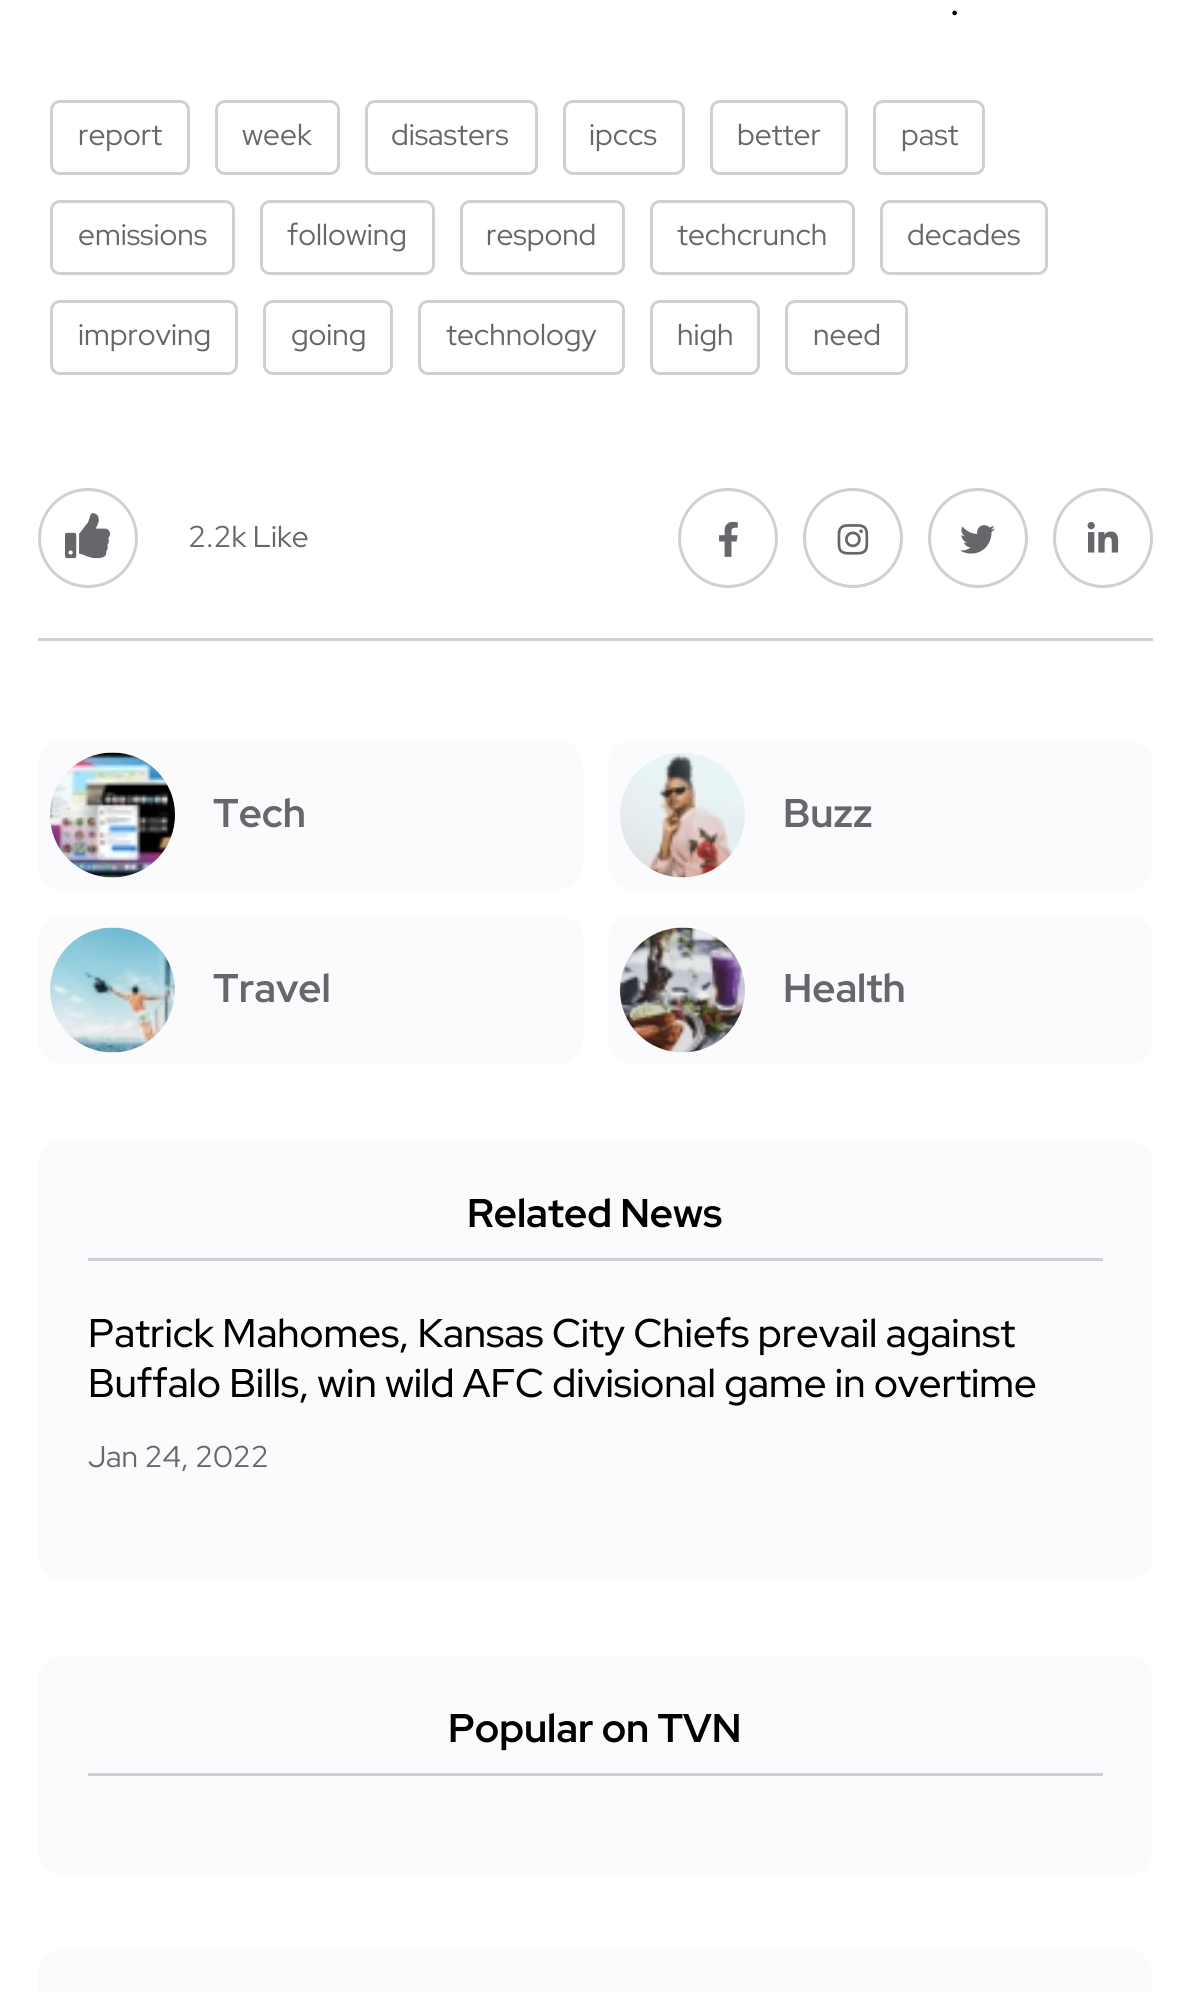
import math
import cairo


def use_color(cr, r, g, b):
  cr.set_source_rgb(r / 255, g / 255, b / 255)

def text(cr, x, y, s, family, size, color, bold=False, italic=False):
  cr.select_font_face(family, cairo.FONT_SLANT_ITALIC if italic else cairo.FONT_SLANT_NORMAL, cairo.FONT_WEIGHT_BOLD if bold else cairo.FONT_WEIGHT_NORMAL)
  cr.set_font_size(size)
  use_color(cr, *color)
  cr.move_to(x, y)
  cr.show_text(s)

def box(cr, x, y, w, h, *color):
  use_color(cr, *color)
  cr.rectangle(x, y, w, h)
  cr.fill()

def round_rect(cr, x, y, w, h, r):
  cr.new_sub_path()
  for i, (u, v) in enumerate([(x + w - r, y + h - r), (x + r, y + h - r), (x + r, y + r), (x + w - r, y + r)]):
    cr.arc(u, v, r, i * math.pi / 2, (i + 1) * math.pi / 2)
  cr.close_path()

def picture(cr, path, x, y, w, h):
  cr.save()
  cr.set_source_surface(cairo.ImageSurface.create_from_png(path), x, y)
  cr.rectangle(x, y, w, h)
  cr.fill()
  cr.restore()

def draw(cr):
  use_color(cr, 255, 255, 255)
  cr.paint()
  round_rect(cr, 51.5, 101.5, 137, 72, 8.5)
  use_color(cr, 206, 208, 212)
  cr.set_line_width(3)
  cr.stroke()
  round_rect(cr, 216.5, 101.5, 122, 72, 8.5)
  cr.stroke()
  round_rect(cr, 366.5, 101.5, 170, 72, 8.5)
  cr.stroke()
  round_rect(cr, 564.5, 101.5, 119, 72, 8.5)
  cr.stroke()
  round_rect(cr, 711.5, 101.5, 135, 72, 8.5)
  cr.stroke()
  round_rect(cr, 874.5, 101.5, 109, 72, 8.5)
  cr.stroke()
  round_rect(cr, 51.5, 201.5, 182, 72, 8.5)
  cr.stroke()
  round_rect(cr, 261.5, 201.5, 172, 72, 8.5)
  cr.stroke()
  round_rect(cr, 461.5, 201.5, 162, 72, 8.5)
  cr.stroke()
  round_rect(cr, 651.5, 201.5, 202, 72, 8.5)
  cr.stroke()
  round_rect(cr, 881.5, 201.5, 165, 72, 8.5)
  cr.stroke()
  round_rect(cr, 51.5, 301.5, 185, 72, 8.5)
  cr.stroke()
  round_rect(cr, 264.5, 301.5, 127, 72, 8.5)
  cr.stroke()
  round_rect(cr, 419.5, 301.5, 204, 72, 8.5)
  cr.stroke()
  round_rect(cr, 651.5, 301.5, 107, 72, 8.5)
  cr.stroke()
  round_rect(cr, 786.5, 301.5, 120, 72, 8.5)
  cr.stroke()
  box(cr, 38, 638, 1115, 3, 206, 208, 212)
  cr.arc(88, 538, 48.5, 0, 2 * math.pi)
  cr.stroke()
  picture(cr, "img_01.png", 65, 513, 45, 46)
  cr.arc(728, 538, 48.5, 0, 2 * math.pi)
  cr.stroke()
  picture(cr, "img_02.png", 719, 521, 19, 36)
  cr.arc(853, 538, 48.5, 0, 2 * math.pi)
  cr.stroke()
  picture(cr, "img_03.png", 837, 524, 32, 31)
  cr.arc(978, 538, 48.5, 0, 2 * math.pi)
  cr.stroke()
  picture(cr, "img_04.png", 960, 525, 35, 29)
  cr.arc(1103, 538, 48.5, 0, 2 * math.pi)
  cr.stroke()
  picture(cr, "img_05.png", 1087, 521, 32, 32)
  use_color(cr, 251, 251, 253)
  round_rect(cr, 38, 740, 545, 150, 25)
  cr.fill()
  picture(cr, "img_06.png", 50, 752, 125, 126)
  round_rect(cr, 608, 740, 545, 150, 25)
  cr.fill()
  picture(cr, "img_07.png", 620, 752, 125, 126)
  round_rect(cr, 38, 915, 545, 150, 25)
  cr.fill()
  picture(cr, "img_08.png", 50, 927, 125, 126)
  round_rect(cr, 608, 915, 545, 150, 25)
  cr.fill()
  picture(cr, "img_09.png", 620, 927, 125, 126)
  round_rect(cr, 38, 1140, 1115, 440, 25)
  cr.fill()
  box(cr, 88, 1258, 1015, 3, 206, 208, 212)
  use_color(cr, 251, 251, 253)
  round_rect(cr, 38, 1655, 1115, 220, 25)
  cr.fill()
  box(cr, 88, 1773, 1015, 3, 206, 208, 212)
  use_color(cr, 251, 251, 253)
  round_rect(cr, 38, 1950, 1115, 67, 25)
  cr.fill()
  text(cr, 949, 15, ".", "Red Hat Display", 45, (0, 0, 0))
  text(cr, 78, 145, "report", "Red Hat Display", 30, (101, 103, 107))
  text(cr, 242, 145, "week", "Red Hat Display", 30, (101, 103, 107))
  text(cr, 391, 145, "disasters", "Red Hat Display", 30, (101, 103, 107))
  text(cr, 589, 145, "ipccs", "Red Hat Display", 30, (101, 103, 107))
  text(cr, 737, 145, "better", "Red Hat Display", 30, (101, 103, 107))
  text(cr, 901, 145, "past", "Red Hat Display", 30, (101, 103, 107))
  text(cr, 78, 245, "emissions", "Red Hat Display", 30, (101, 103, 107))
  text(cr, 287, 245, "following", "Red Hat Display", 30, (101, 103, 107))
  text(cr, 486, 245, "respond", "Red Hat Display", 30, (101, 103, 107))
  text(cr, 677, 245, "techcrunch", "Red Hat Display", 30, (101, 103, 107))
  text(cr, 907, 245, "decades", "Red Hat Display", 30, (101, 103, 107))
  text(cr, 78, 345, "improving", "Red Hat Display", 30, (101, 103, 107))
  text(cr, 291, 345, "going", "Red Hat Display", 30, (101, 103, 107))
  text(cr, 446, 345, "technology", "Red Hat Display", 30, (101, 103, 107))
  text(cr, 677, 345, "high", "Red Hat Display", 30, (101, 103, 107))
  text(cr, 813, 345, "need", "Red Hat Display", 30, (101, 103, 107))
  text(cr, 188, 547, "2.2k Like", "Red Hat Display", 30, (101, 103, 107))
  text(cr, 213, 827, "Tech", "Red Hat Display", 40, (101, 103, 107), bold=True)
  text(cr, 783, 827, "Buzz", "Red Hat Display", 40, (101, 103, 107), bold=True)
  text(cr, 213, 1002, "Travel", "Red Hat Display", 40, (101, 103, 107), bold=True)
  text(cr, 783, 1002, "Health", "Red Hat Display", 40, (101, 103, 107), bold=True)
  text(cr, 467, 1227, "Related News", "Red Hat Display", 40, (0, 0, 0), bold=True)
  text(cr, 88, 1347, "Patrick Mahomes, Kansas City Chiefs prevail against", "Red Hat Display Medium", 40, (0, 0, 0))
  text(cr, 88, 1397, "Buffalo Bills, win wild AFC divisional game in overtime", "Red Hat Display Medium", 40, (0, 0, 0))
  text(cr, 88, 1467, "Jan 24, 2022", "Red Hat Display", 30, (101, 103, 107))
  text(cr, 448, 1742, "Popular on TVN", "Red Hat Display", 40, (0, 0, 0), bold=True)


surface = cairo.ImageSurface(cairo.FORMAT_RGB24, 1189, 1992)
cr = cairo.Context(surface)
options = cairo.FontOptions()
options.set_hint_metrics(cairo.HINT_METRICS_OFF)
options.set_hint_style(cairo.HINT_STYLE_NONE)
cr.set_font_options(options)
cr.set_miter_limit(4)
draw(cr)
surface.write_to_png("out.png")
